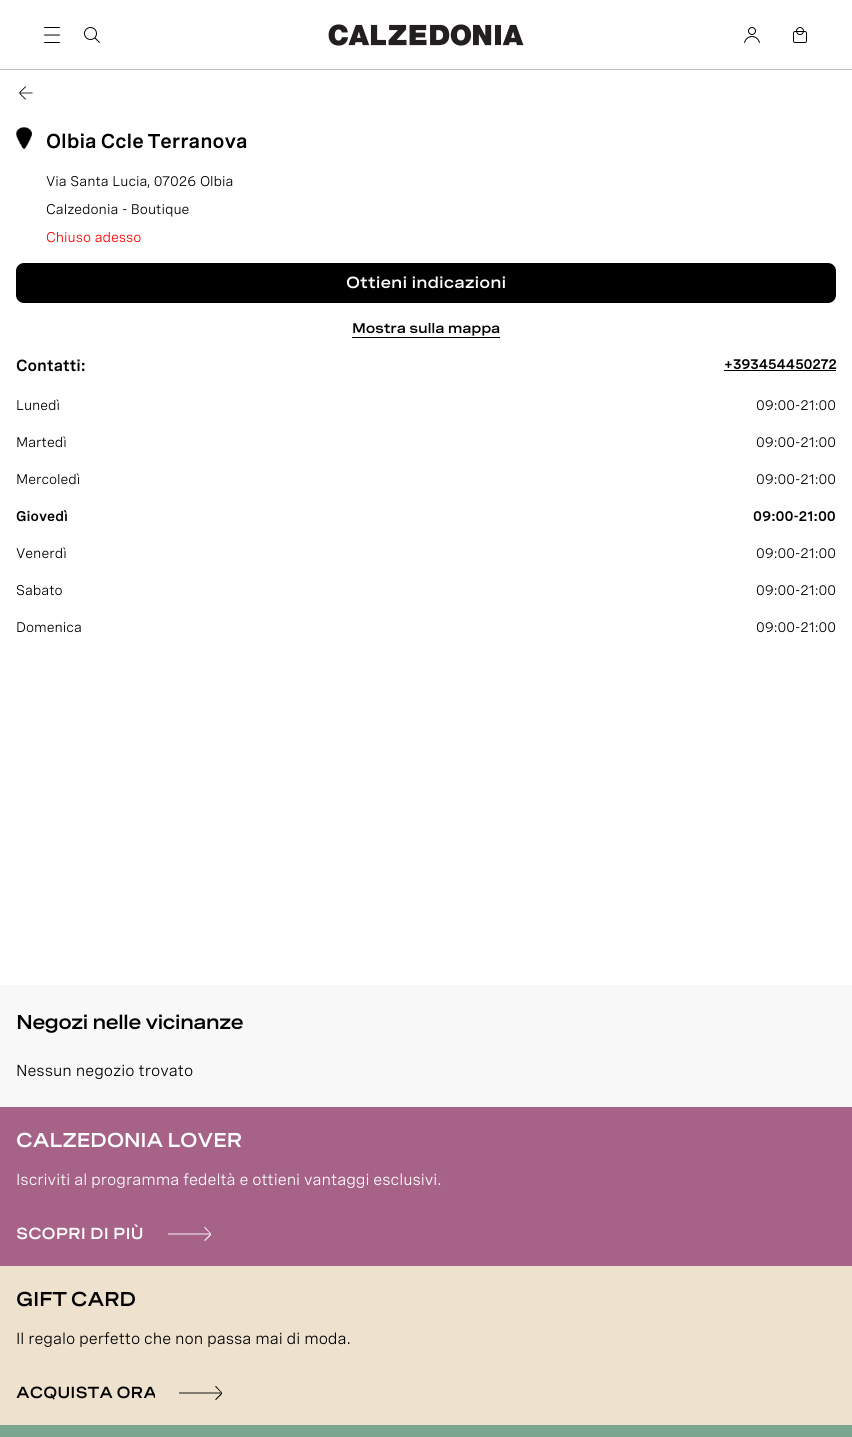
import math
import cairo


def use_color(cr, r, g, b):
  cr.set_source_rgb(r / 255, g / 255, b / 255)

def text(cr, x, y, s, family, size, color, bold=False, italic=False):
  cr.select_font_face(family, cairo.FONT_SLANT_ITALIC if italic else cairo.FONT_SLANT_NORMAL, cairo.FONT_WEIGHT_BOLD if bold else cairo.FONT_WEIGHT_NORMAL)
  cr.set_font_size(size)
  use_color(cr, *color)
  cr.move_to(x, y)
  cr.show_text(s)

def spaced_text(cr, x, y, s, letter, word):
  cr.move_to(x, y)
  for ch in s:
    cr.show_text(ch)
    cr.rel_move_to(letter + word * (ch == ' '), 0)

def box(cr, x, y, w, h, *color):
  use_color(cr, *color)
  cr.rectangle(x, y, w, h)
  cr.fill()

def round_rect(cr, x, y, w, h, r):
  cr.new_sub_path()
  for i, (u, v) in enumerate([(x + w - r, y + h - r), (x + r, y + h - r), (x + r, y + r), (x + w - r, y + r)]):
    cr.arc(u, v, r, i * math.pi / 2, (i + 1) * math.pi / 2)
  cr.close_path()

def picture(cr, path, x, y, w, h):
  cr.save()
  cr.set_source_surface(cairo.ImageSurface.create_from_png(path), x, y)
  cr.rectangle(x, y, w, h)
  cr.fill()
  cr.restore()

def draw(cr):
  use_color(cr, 255, 255, 255)
  cr.paint()
  box(cr, 0, 69, 852, 1, 191, 191, 191)
  picture(cr, "img_01.png", 44, 27, 16, 16)
  picture(cr, "img_02.png", 84, 27, 16, 16)
  picture(cr, "img_03.png", 328, 24, 196, 22)
  picture(cr, "img_04.png", 744, 27, 16, 16)
  picture(cr, "img_05.png", 793, 27, 14, 16)
  picture(cr, "img_06.png", 19, 86, 14, 14)
  picture(cr, "img_07.png", 16, 126, 16, 23)
  use_color(cr, 0, 0, 0)
  round_rect(cr, 16, 263, 820, 40, 8)
  cr.fill()
  box(cr, 352, 337, 148, 1, 0, 0, 0)
  box(cr, 724, 370, 112, 1, 0, 0, 0)
  box(cr, 0, 985, 852, 122, 248, 248, 248)
  box(cr, 0, 1107, 852, 159, 167, 98, 135)
  cr.new_path()
  cr.move_to(210, 1234)
  cr.line_to(168, 1234)
  use_color(cr, 255, 255, 255)
  cr.set_line_width(0.9)
  cr.stroke()
  cr.new_path()
  cr.move_to(204.5, 1240)
  cr.curve_to(204, 1240.5, 204.5, 1241, 205, 1241)
  cr.line_to(208, 1238)
  cr.curve_to(210.5, 1235.5, 212.5, 1234.5, 209.5, 1232)
  cr.line_to(205, 1227)
  cr.line_to(204, 1227.5)
  cr.line_to(209, 1232.5)
  cr.curve_to(210.5, 1234, 210.5, 1234, 209, 1235.5)
  cr.close_path()
  cr.fill()
  box(cr, 0, 1266, 852, 159, 238, 225, 205)
  cr.new_path()
  cr.move_to(221, 1393)
  cr.line_to(179, 1393)
  use_color(cr, 0, 0, 0)
  cr.stroke()
  cr.new_path()
  cr.move_to(215.5, 1399)
  cr.curve_to(215, 1399.5, 215.5, 1400, 216, 1400)
  cr.line_to(219, 1397)
  cr.curve_to(221.5, 1394.5, 223.5, 1393.5, 220.5, 1391)
  cr.line_to(216, 1386)
  cr.line_to(215, 1386.5)
  cr.line_to(220, 1391.5)
  cr.curve_to(221.5, 1393, 221.5, 1393, 220, 1394.5)
  cr.close_path()
  cr.fill()
  box(cr, 0, 1425, 852, 12, 122, 166, 144)
  cr.select_font_face("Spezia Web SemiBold")
  cr.set_font_size(20)
  use_color(cr, 0, 0, 0)
  spaced_text(cr, 46, 148, "Olbia Ccle Terranova", 0, -1)
  text(cr, 46, 186, "Via Santa Lucia", "Spezia Web", 14, (0, 0, 0))
  text(cr, 147, 186, ", 07026 Olbia", "Spezia Web", 14, (0, 0, 0))
  text(cr, 46, 214, "Calzedonia - Boutique", "Spezia Web", 14, (0, 0, 0))
  text(cr, 46, 242, "Chiuso adesso", "Spezia Web", 14, (255, 0, 0))
  text(cr, 346, 288, "Ottieni indicazioni", "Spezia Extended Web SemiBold", 16, (255, 255, 255))
  cr.set_font_size(14)
  use_color(cr, 0, 0, 0)
  spaced_text(cr, 352, 333, "Mostra sulla mappa", -0.25, 0)
  text(cr, 16, 371, "Contatti:", "Spezia Web SemiBold", 16, (0, 0, 0))
  cr.set_font_size(14)
  spaced_text(cr, 724, 369, "+393454450272", -0.25, 0)
  text(cr, 16, 410, "Lunedì", "Spezia Web", 14, (0, 0, 0))
  text(cr, 756, 410, "09:00-21:00", "Spezia Web", 14, (0, 0, 0))
  text(cr, 16, 447, "Martedì", "Spezia Web", 14, (0, 0, 0))
  text(cr, 756, 447, "09:00-21:00", "Spezia Web", 14, (0, 0, 0))
  text(cr, 16, 484, "Mercoledì", "Spezia Web", 14, (0, 0, 0))
  text(cr, 756, 484, "09:00-21:00", "Spezia Web", 14, (0, 0, 0))
  text(cr, 16, 521, "Giovedì", "Spezia Web SemiBold", 14, (0, 0, 0))
  text(cr, 753, 521, "09:00-21:00", "Spezia Web SemiBold", 14, (0, 0, 0))
  text(cr, 16, 558, "Venerdì", "Spezia Web", 14, (0, 0, 0))
  text(cr, 756, 558, "09:00-21:00", "Spezia Web", 14, (0, 0, 0))
  text(cr, 16, 595, "Sabato", "Spezia Web", 14, (0, 0, 0))
  text(cr, 756, 595, "09:00-21:00", "Spezia Web", 14, (0, 0, 0))
  text(cr, 16, 632, "Domenica", "Spezia Web", 14, (0, 0, 0))
  text(cr, 756, 632, "09:00-21:00", "Spezia Web", 14, (0, 0, 0))
  cr.select_font_face("Spezia Extended Web SemiBold")
  cr.set_font_size(20)
  spaced_text(cr, 16, 1029, "Negozi nelle vicinanze", -0.8, 0)
  text(cr, 16, 1076, "Nessun negozio trovato", "Spezia Web", 16, (0, 0, 0))
  cr.select_font_face("Spezia Extended Web SemiBold")
  cr.set_font_size(20)
  use_color(cr, 255, 255, 255)
  spaced_text(cr, 16, 1147, "CALZEDONIA LOVER", -0.4, -1)
  cr.select_font_face("Spezia Web")
  cr.set_font_size(16)
  spaced_text(cr, 16, 1185, "Iscriviti al programma fedeltà e ottieni vantaggi esclusivi.", 0, -0.25)
  text(cr, 16, 1239, "SCOPRI DI PIÙ", "Spezia Extended Web SemiBold", 16, (255, 255, 255))
  cr.set_font_size(20)
  use_color(cr, 0, 0, 0)
  spaced_text(cr, 16, 1306, "GIFT CARD", -0.4, -1)
  cr.select_font_face("Spezia Web")
  cr.set_font_size(16)
  spaced_text(cr, 16, 1344, "Il regalo perfetto che non passa mai di moda.", 0, -0.25)
  cr.save()
  cr.rectangle(16, 1382, 139, 22)
  cr.clip()
  cr.select_font_face("Spezia Extended Web SemiBold")
  spaced_text(cr, 16, 1398, "ACQUISTA ORA", 0, -1)
  cr.restore()


surface = cairo.ImageSurface(cairo.FORMAT_RGB24, 852, 1437)
cr = cairo.Context(surface)
options = cairo.FontOptions()
options.set_hint_metrics(cairo.HINT_METRICS_OFF)
options.set_hint_style(cairo.HINT_STYLE_NONE)
cr.set_font_options(options)
cr.set_miter_limit(4)
draw(cr)
surface.write_to_png("out.png")
